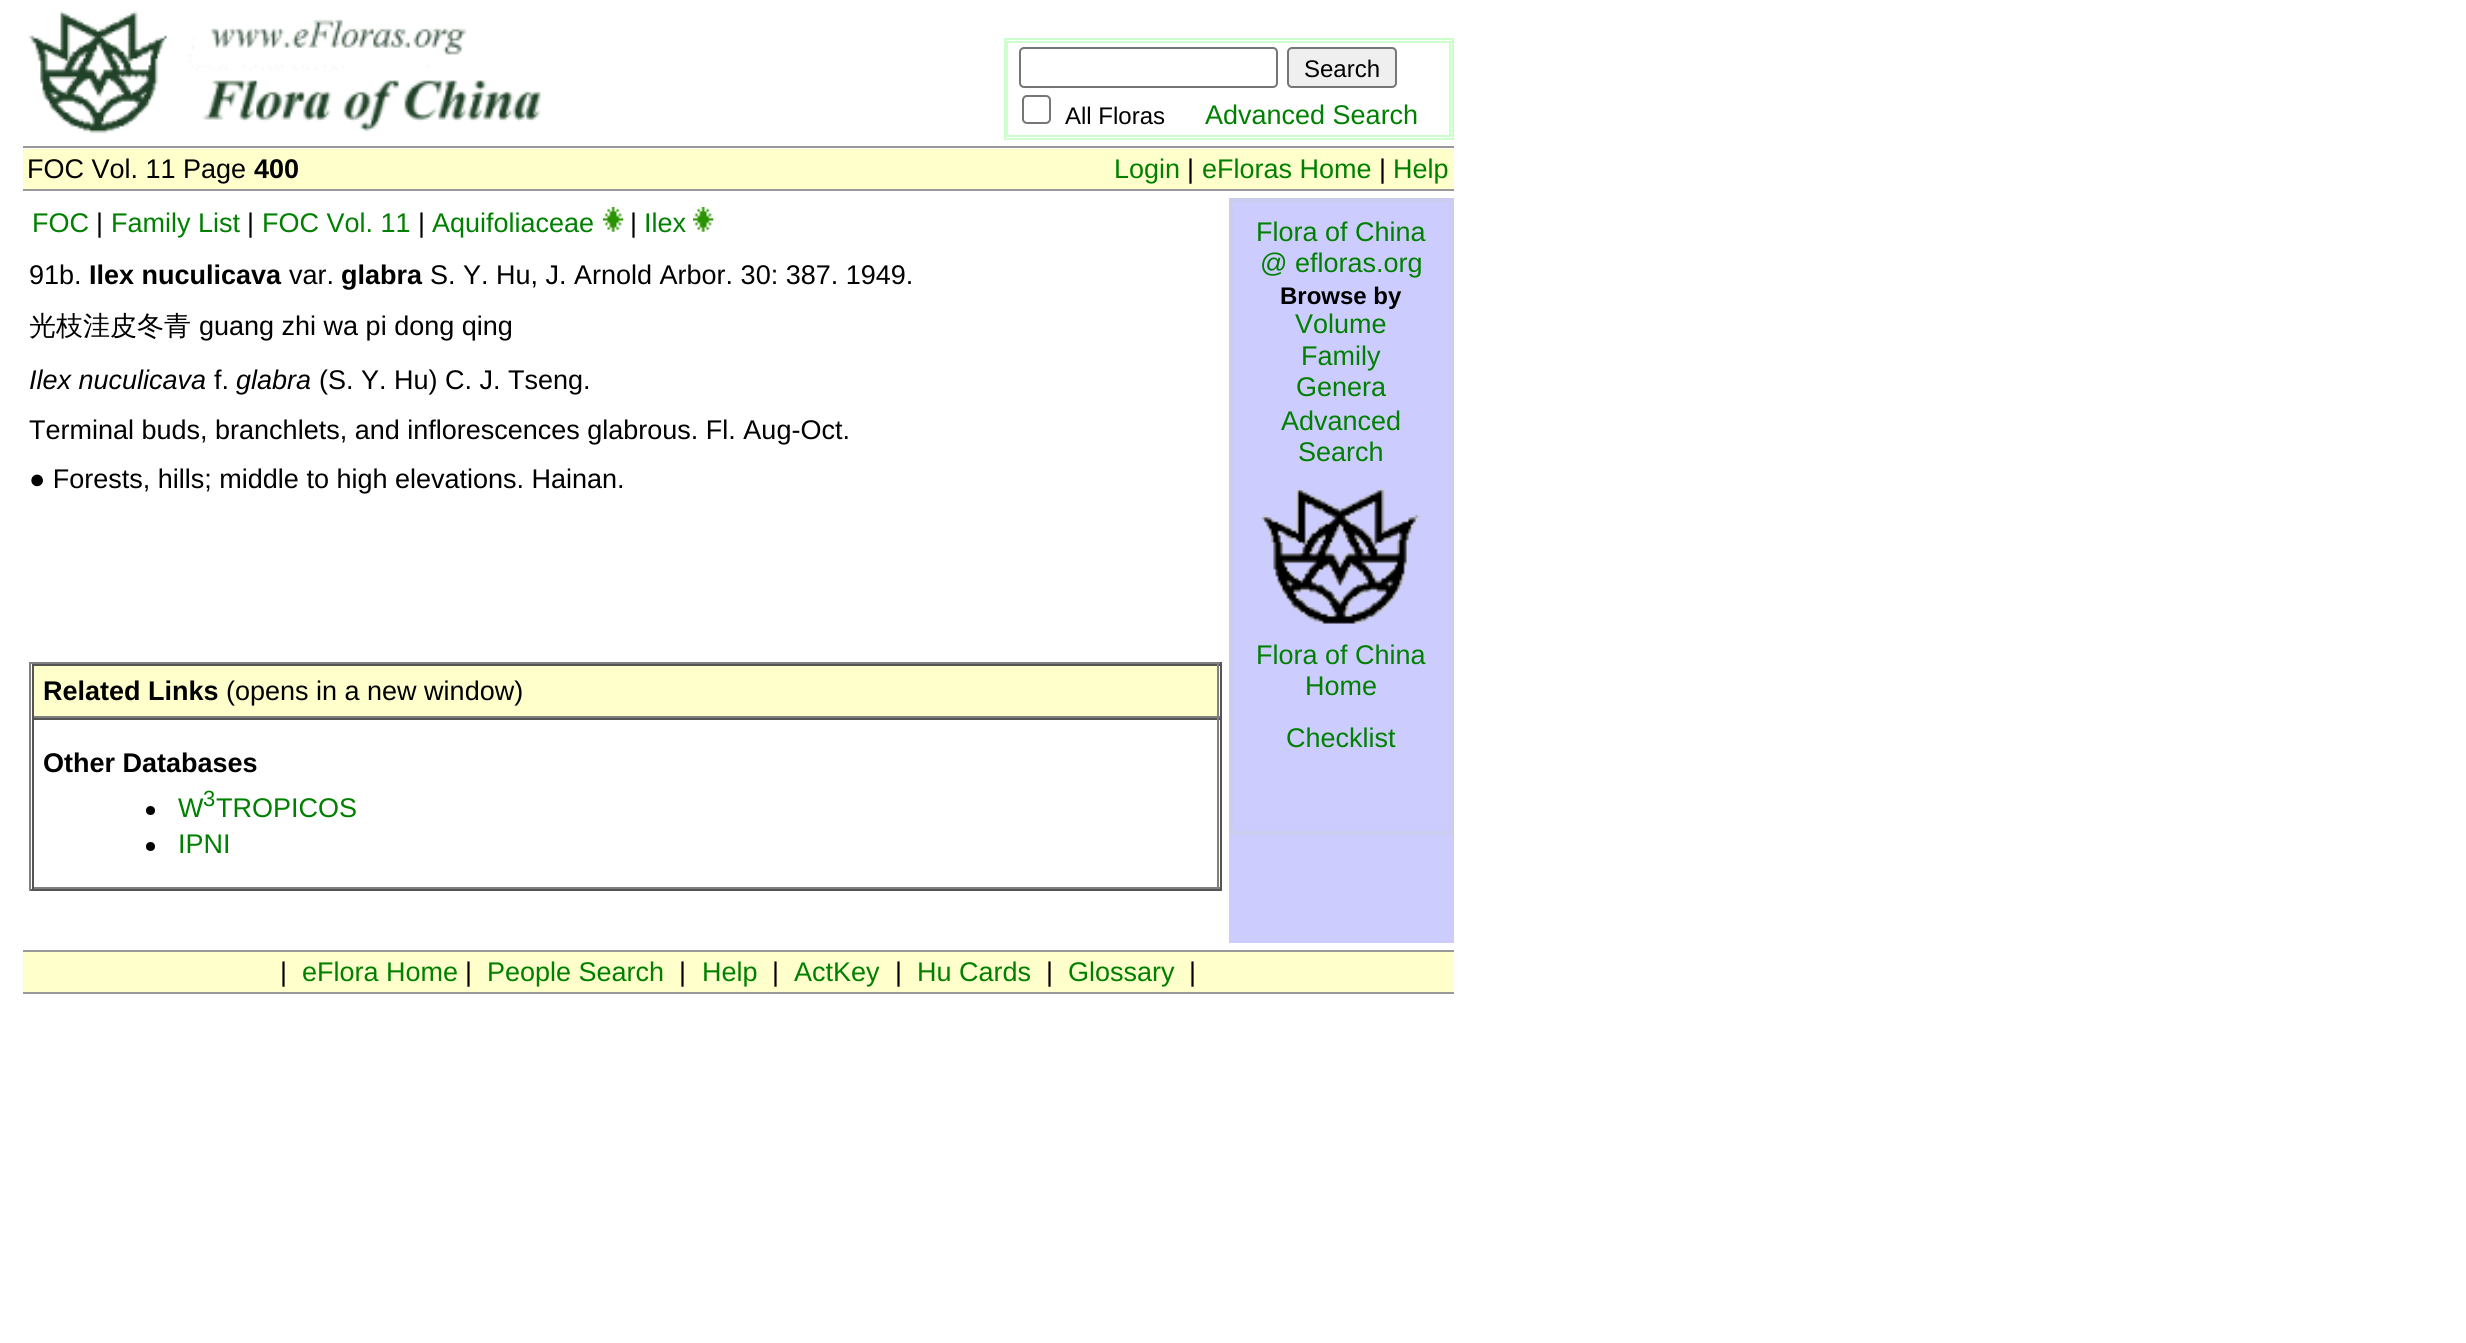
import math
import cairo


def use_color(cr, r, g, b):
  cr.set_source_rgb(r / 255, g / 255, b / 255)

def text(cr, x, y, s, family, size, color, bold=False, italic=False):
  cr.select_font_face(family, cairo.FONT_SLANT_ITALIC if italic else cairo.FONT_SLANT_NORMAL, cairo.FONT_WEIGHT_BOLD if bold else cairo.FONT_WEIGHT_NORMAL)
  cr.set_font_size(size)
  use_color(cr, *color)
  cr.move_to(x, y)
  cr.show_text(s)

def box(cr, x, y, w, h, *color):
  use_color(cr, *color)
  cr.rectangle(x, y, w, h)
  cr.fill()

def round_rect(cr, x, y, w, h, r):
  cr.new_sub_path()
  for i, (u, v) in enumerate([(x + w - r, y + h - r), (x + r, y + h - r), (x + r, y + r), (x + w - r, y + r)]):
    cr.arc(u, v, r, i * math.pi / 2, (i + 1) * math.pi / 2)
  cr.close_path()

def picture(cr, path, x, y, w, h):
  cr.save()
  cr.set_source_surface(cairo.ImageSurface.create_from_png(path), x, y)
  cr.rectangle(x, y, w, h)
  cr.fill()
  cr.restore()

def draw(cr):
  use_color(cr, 255, 255, 255)
  cr.paint()
  picture(cr, "img_01.png", 28, 10, 513, 124)
  cr.rectangle(1005, 39, 448, 100)
  use_color(cr, 204, 255, 204)
  cr.stroke()
  cr.rectangle(1007, 42, 443, 94)
  cr.stroke()
  round_rect(cr, 1020, 48, 257, 39, 4)
  use_color(cr, 118, 118, 118)
  cr.stroke()
  use_color(cr, 239, 239, 239)
  round_rect(cr, 1288, 48, 108, 39, 4)
  cr.fill_preserve()
  use_color(cr, 118, 118, 118)
  cr.stroke()
  round_rect(cr, 1023, 96, 27, 27, 4)
  cr.stroke()
  box(cr, 23, 146, 1431, 2, 153, 153, 153)
  box(cr, 23, 149, 1431, 40, 255, 255, 204)
  box(cr, 23, 189, 1431, 2, 153, 153, 153)
  picture(cr, "img_02.png", 603, 207, 21, 25)
  picture(cr, "img_03.png", 693, 207, 21, 25)
  box(cr, 29, 662, 1193, 2, 128, 128, 128)
  box(cr, 1220, 662, 2, 229, 85, 85, 85)
  box(cr, 29, 889, 1193, 2, 85, 85, 85)
  box(cr, 29, 662, 2, 229, 128, 128, 128)
  box(cr, 34, 666, 1186, 50, 255, 255, 204)
  box(cr, 32, 664, 1188, 2, 85, 85, 85)
  box(cr, 1217, 664, 2, 54, 128, 128, 128)
  box(cr, 32, 716, 1188, 2, 128, 128, 128)
  box(cr, 32, 664, 2, 54, 85, 85, 85)
  box(cr, 32, 718, 1188, 2, 85, 85, 85)
  box(cr, 1217, 718, 2, 171, 128, 128, 128)
  box(cr, 32, 887, 1188, 2, 128, 128, 128)
  box(cr, 32, 718, 2, 171, 85, 85, 85)
  use_color(cr, 0, 0, 0)
  cr.arc(150.5, 810.5, 4.5, 0, 2 * math.pi)
  cr.fill()
  cr.arc(150.5, 846.5, 4.5, 0, 2 * math.pi)
  cr.fill()
  box(cr, 1229, 200, 225, 743, 204, 204, 255)
  cr.rectangle(1230, 199, 223, 635)
  use_color(cr, 204, 204, 238)
  cr.stroke()
  cr.rectangle(1232, 201, 218, 631)
  cr.stroke()
  picture(cr, "img_04.png", 1261, 487, 160, 137)
  box(cr, 23, 950, 1431, 2, 153, 153, 153)
  box(cr, 23, 952, 1431, 40, 255, 255, 204)
  box(cr, 23, 992, 1431, 2, 153, 153, 153)
  text(cr, 1304, 77, "Search", "Liberation Sans", 24, (0, 0, 0))
  text(cr, 1065, 124, "All Floras", "Liberation Sans", 24, (0, 0, 0))
  text(cr, 1205, 124, "Advanced Search", "Liberation Sans", 27, (0, 128, 0))
  text(cr, 27, 178, "FOC Vol. 11 Page", "Liberation Sans", 27, (0, 0, 0))
  text(cr, 254, 178, "400", "Liberation Sans", 27, (0, 0, 0), bold=True)
  text(cr, 1114, 178, "Login", "Liberation Sans", 27, (0, 128, 0))
  text(cr, 1187, 178, "|", "Liberation Sans", 27, (0, 0, 0))
  text(cr, 1202, 178, "eFloras Home", "Liberation Sans", 27, (0, 128, 0))
  text(cr, 1379, 178, "|", "Liberation Sans", 27, (0, 0, 0))
  text(cr, 1393, 178, "Help", "Liberation Sans", 27, (0, 128, 0))
  text(cr, 32, 232, "FOC", "Liberation Sans", 27, (0, 128, 0))
  text(cr, 96, 232, "|", "Liberation Sans", 27, (0, 0, 0))
  text(cr, 111, 232, "Family List", "Liberation Sans", 27, (0, 128, 0))
  text(cr, 247, 232, "|", "Liberation Sans", 27, (0, 0, 0))
  text(cr, 262, 232, "FOC Vol. 11", "Liberation Sans", 27, (0, 128, 0))
  text(cr, 418, 232, "|", "Liberation Sans", 27, (0, 0, 0))
  text(cr, 432, 232, "Aquifoliaceae", "Liberation Sans", 27, (0, 128, 0))
  text(cr, 630, 232, "|", "Liberation Sans", 27, (0, 0, 0))
  text(cr, 644, 232, "Ilex", "Liberation Sans", 27, (0, 128, 0))
  text(cr, 29, 284, "91b.", "Liberation Sans", 27, (0, 0, 0))
  text(cr, 89, 284, "Ilex nuculicava", "Liberation Sans", 27, (0, 0, 0), bold=True)
  text(cr, 289, 284, "var.", "Liberation Sans", 27, (0, 0, 0))
  text(cr, 341, 284, "glabra", "Liberation Sans", 27, (0, 0, 0), bold=True)
  text(cr, 430, 284, "S. Y. Hu, J. Arnold Arbor. 30: 387. 1949.", "Liberation Sans", 27, (0, 0, 0))
  text(cr, 29, 335, "光枝洼皮冬青", "WenQuanYi Zen Hei Medium", 27, (0, 0, 0))
  text(cr, 199, 335, "guang zhi wa pi dong qing", "Liberation Sans", 27, (0, 0, 0))
  text(cr, 29, 389, "Ilex nuculicava", "Liberation Sans", 27, (0, 0, 0), italic=True)
  text(cr, 214, 389, "f.", "Liberation Sans", 27, (0, 0, 0))
  text(cr, 236, 389, "glabra", "Liberation Sans", 27, (0, 0, 0), italic=True)
  text(cr, 319, 389, "(S. Y. Hu) C. J. Tseng.", "Liberation Sans", 27, (0, 0, 0))
  text(cr, 29, 439, "Terminal buds, branchlets, and inflorescences glabrous. Fl. Aug-Oct.", "Liberation Sans", 27, (0, 0, 0))
  text(cr, 29, 488, "● Forests, hills; middle to high elevations. Hainan.", "Liberation Sans", 27, (0, 0, 0))
  text(cr, 43, 700, "Related Links", "Liberation Sans", 27, (0, 0, 0), bold=True)
  text(cr, 226, 700, "(opens in a new window)", "Liberation Sans", 27, (0, 0, 0))
  text(cr, 43, 772, "Other Databases", "Liberation Sans", 27, (0, 0, 0), bold=True)
  text(cr, 178, 817, "W", "Liberation Sans", 27, (0, 128, 0))
  text(cr, 203, 806, "3", "Liberation Sans", 22, (0, 128, 0))
  text(cr, 216, 817, "TROPICOS", "Liberation Sans", 27, (0, 128, 0))
  text(cr, 178, 853, "IPNI", "Liberation Sans", 27, (0, 128, 0))
  text(cr, 1256, 241, "Flora of China", "Liberation Sans", 27, (0, 128, 0))
  text(cr, 1260, 272, "@ efloras.org", "Liberation Sans", 27, (0, 128, 0))
  text(cr, 1280, 304, "Browse by", "Liberation Sans", 24, (0, 0, 0), bold=True)
  text(cr, 1295, 333, "Volume", "Liberation Sans", 27, (0, 128, 0))
  text(cr, 1301, 365, "Family", "Liberation Sans", 27, (0, 128, 0))
  text(cr, 1296, 396, "Genera", "Liberation Sans", 27, (0, 128, 0))
  text(cr, 1281, 430, "Advanced", "Liberation Sans", 27, (0, 128, 0))
  text(cr, 1298, 461, "Search", "Liberation Sans", 27, (0, 128, 0))
  text(cr, 1256, 664, "Flora of China", "Liberation Sans", 27, (0, 128, 0))
  text(cr, 1305, 695, "Home", "Liberation Sans", 27, (0, 128, 0))
  text(cr, 1286, 747, "Checklist", "Liberation Sans", 27, (0, 128, 0))
  text(cr, 280, 981, "|", "Liberation Sans", 27, (0, 0, 0))
  text(cr, 302, 981, "eFlora Home", "Liberation Sans", 27, (0, 128, 0))
  text(cr, 465, 981, "|", "Liberation Sans", 27, (0, 0, 0))
  text(cr, 487, 981, "People Search", "Liberation Sans", 27, (0, 128, 0))
  text(cr, 679, 981, "|", "Liberation Sans", 27, (0, 0, 0))
  text(cr, 702, 981, "Help", "Liberation Sans", 27, (0, 128, 0))
  text(cr, 772, 981, "|", "Liberation Sans", 27, (0, 0, 0))
  text(cr, 794, 981, "ActKey", "Liberation Sans", 27, (0, 128, 0))
  text(cr, 895, 981, "|", "Liberation Sans", 27, (0, 0, 0))
  text(cr, 917, 981, "Hu Cards", "Liberation Sans", 27, (0, 128, 0))
  text(cr, 1046, 981, "|", "Liberation Sans", 27, (0, 0, 0))
  text(cr, 1068, 981, "Glossary", "Liberation Sans", 27, (0, 128, 0))
  text(cr, 1189, 981, "|", "Liberation Sans", 27, (0, 0, 0))


surface = cairo.ImageSurface(cairo.FORMAT_RGB24, 2466, 1343)
cr = cairo.Context(surface)
options = cairo.FontOptions()
options.set_hint_metrics(cairo.HINT_METRICS_OFF)
options.set_hint_style(cairo.HINT_STYLE_NONE)
cr.set_font_options(options)
cr.set_miter_limit(4)
draw(cr)
surface.write_to_png("out.png")
